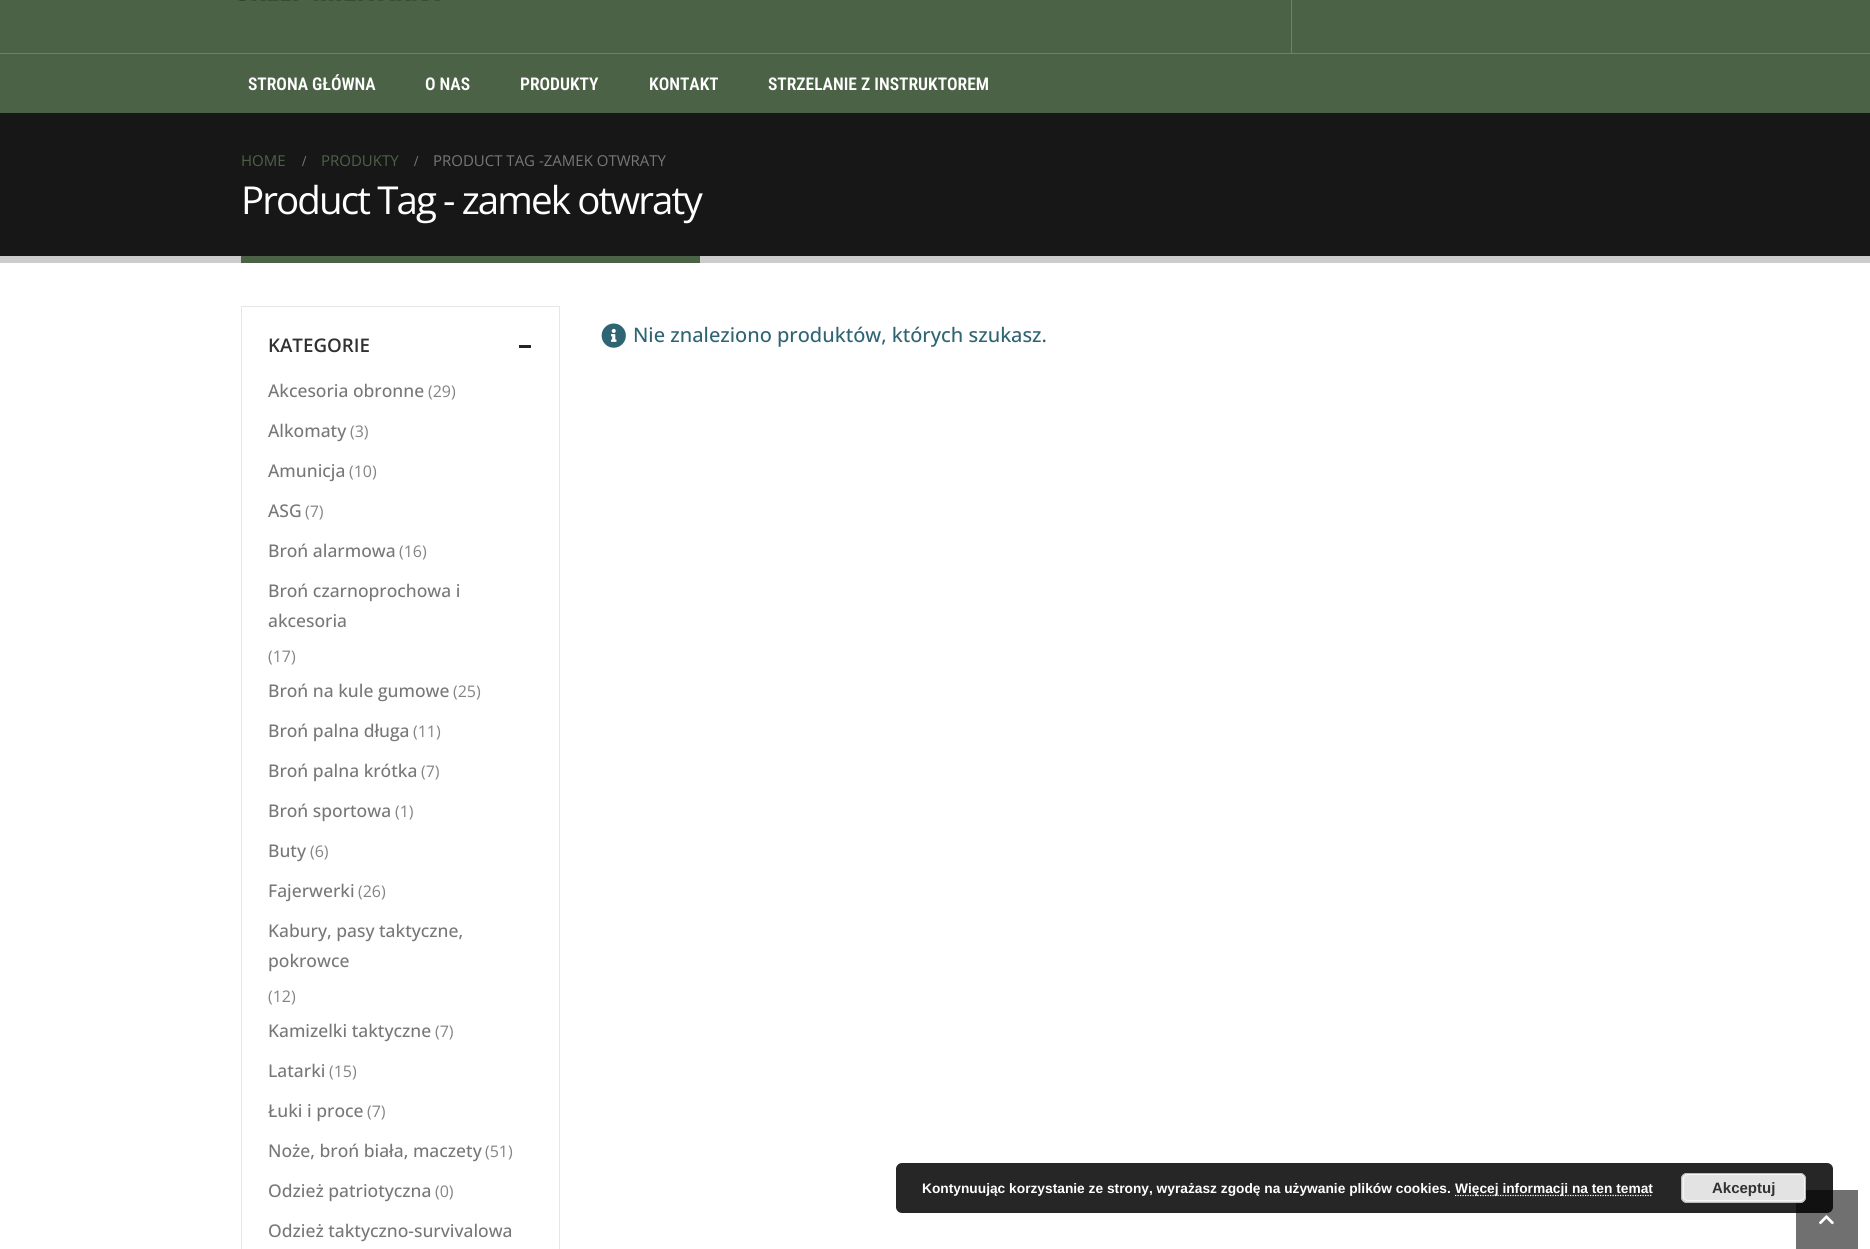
import math
import cairo


def use_color(cr, r, g, b):
  cr.set_source_rgb(r / 255, g / 255, b / 255)

def text(cr, x, y, s, family, size, color, bold=False, italic=False):
  cr.select_font_face(family, cairo.FONT_SLANT_ITALIC if italic else cairo.FONT_SLANT_NORMAL, cairo.FONT_WEIGHT_BOLD if bold else cairo.FONT_WEIGHT_NORMAL)
  cr.set_font_size(size)
  use_color(cr, *color)
  cr.move_to(x, y)
  cr.show_text(s)

def spaced_text(cr, x, y, s, letter, word):
  cr.move_to(x, y)
  for ch in s:
    cr.show_text(ch)
    cr.rel_move_to(letter + word * (ch == ' '), 0)

def box(cr, x, y, w, h, *color):
  use_color(cr, *color)
  cr.rectangle(x, y, w, h)
  cr.fill()

def round_rect(cr, x, y, w, h, r):
  cr.new_sub_path()
  for i, (u, v) in enumerate([(x + w - r, y + h - r), (x + r, y + h - r), (x + r, y + r), (x + w - r, y + r)]):
    cr.arc(u, v, r, i * math.pi / 2, (i + 1) * math.pi / 2)
  cr.close_path()

def picture(cr, path, x, y, w, h):
  cr.save()
  cr.set_source_surface(cairo.ImageSurface.create_from_png(path), x, y)
  cr.rectangle(x, y, w, h)
  cr.fill()
  cr.restore()

def draw(cr):
  use_color(cr, 255, 255, 255)
  cr.paint()
  box(cr, 0, 0, 1870, 53, 76, 98, 70)
  picture(cr, "img_01.png", 238, 0, 202, 1)
  box(cr, 1291, 0, 1, 53, 112, 129, 107)
  box(cr, 0, 54, 1870, 59, 76, 98, 70)
  box(cr, 0, 53, 1870, 1, 112, 129, 107)
  box(cr, 0, 113, 1870, 143, 23, 23, 23)
  box(cr, 0, 256, 1870, 7, 204, 204, 204)
  box(cr, 241, 256, 459, 7, 76, 98, 70)
  cr.rectangle(241.5, 306.5, 318, 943)
  use_color(cr, 231, 231, 231)
  cr.set_line_width(1)
  cr.stroke()
  box(cr, 519, 345, 12, 3, 34, 37, 41)
  picture(cr, "img_02.png", 601, 323, 25, 25)
  box(cr, 1796, 1190, 62, 59, 112, 112, 112)
  cr.set_source_rgba(0, 0, 0, 0.85)
  round_rect(cr, 896, 1163, 937, 50, 6)
  cr.fill()
  cr.new_path()
  cr.move_to(1455, 1195.5)
  cr.line_to(1652.5, 1195.5)
  use_color(cr, 255, 255, 255)
  cr.set_line_width(1.2)
  cr.set_dash([1.25, 1.25])
  cr.stroke()
  use_color(cr, 227, 227, 227)
  round_rect(cr, 1681, 1173, 125, 30, 6)
  cr.fill()
  round_rect(cr, 1683.5, 1174.5, 121, 26, 4.5)
  use_color(cr, 246, 246, 246)
  cr.set_line_width(1)
  cr.set_dash([])
  cr.stroke()
  round_rect(cr, 1681.5, 1173.5, 124, 29, 5.5)
  use_color(cr, 187, 187, 187)
  cr.stroke()
  picture(cr, "img_03.png", 1819, 1215, 15, 10)
  text(cr, 248, 90, "STRONA GŁÓWNA", "Roboto Condensed SemiBold", 17.5, (255, 255, 255))
  text(cr, 425, 90, "O NAS", "Roboto Condensed SemiBold", 17.5, (255, 255, 255))
  text(cr, 520, 90, "PRODUKTY", "Roboto Condensed SemiBold", 17.5, (255, 255, 255))
  text(cr, 649, 90, "KONTAKT", "Roboto Condensed SemiBold", 17.5, (255, 255, 255))
  text(cr, 768, 90, "STRZELANIE Z INSTRUKTOREM", "Roboto Condensed SemiBold", 17.5, (255, 255, 255))
  text(cr, 241, 166, "HOME", "Open Sans", 15, (76, 98, 70))
  text(cr, 302, 166, "/", "Liberation Serif", 15, (119, 119, 119), bold=True)
  text(cr, 321, 166, "PRODUKTY", "Open Sans", 15, (76, 98, 70))
  text(cr, 414, 166, "/", "Liberation Serif", 15, (119, 119, 119), bold=True)
  text(cr, 433, 166, "PRODUCT TAG -ZAMEK OTWRATY", "Open Sans", 15, (119, 119, 119))
  cr.set_font_size(38.5)
  use_color(cr, 255, 255, 255)
  spaced_text(cr, 241, 214, "Product Tag - zamek otwraty", -1.9, 0)
  text(cr, 268, 352, "KATEGORIE", "Open Sans SemiBold", 18.75, (49, 49, 49))
  text(cr, 268, 397, "Akcesoria obronne", "Open Sans Medium", 17.5, (119, 119, 119))
  text(cr, 428, 397, "(29)", "Open Sans", 16, (132, 132, 132))
  text(cr, 268, 437, "Alkomaty", "Open Sans Medium", 17.5, (119, 119, 119))
  text(cr, 350, 437, "(3)", "Open Sans", 16, (132, 132, 132))
  text(cr, 268, 477, "Amunicja", "Open Sans Medium", 17.5, (119, 119, 119))
  text(cr, 349, 477, "(10)", "Open Sans", 16, (132, 132, 132))
  text(cr, 268, 517, "ASG", "Open Sans Medium", 17.5, (119, 119, 119))
  text(cr, 305, 517, "(7)", "Open Sans", 16, (132, 132, 132))
  text(cr, 268, 557, "Broń alarmowa", "Open Sans Medium", 17.5, (119, 119, 119))
  text(cr, 399, 557, "(16)", "Open Sans", 16, (132, 132, 132))
  text(cr, 268, 597, "Broń czarnoprochowa i", "Open Sans Medium", 17.5, (119, 119, 119))
  text(cr, 268, 627, "akcesoria", "Open Sans Medium", 17.5, (119, 119, 119))
  text(cr, 268, 662, "(17)", "Open Sans", 16, (132, 132, 132))
  text(cr, 268, 697, "Broń na kule gumowe", "Open Sans Medium", 17.5, (119, 119, 119))
  text(cr, 453, 697, "(25)", "Open Sans", 16, (132, 132, 132))
  text(cr, 268, 737, "Broń palna długa", "Open Sans Medium", 17.5, (119, 119, 119))
  text(cr, 413, 737, "(11)", "Open Sans", 16, (132, 132, 132))
  text(cr, 268, 777, "Broń palna krótka", "Open Sans Medium", 17.5, (119, 119, 119))
  text(cr, 421, 777, "(7)", "Open Sans", 16, (132, 132, 132))
  text(cr, 268, 817, "Broń sportowa", "Open Sans Medium", 17.5, (119, 119, 119))
  text(cr, 395, 817, "(1)", "Open Sans", 16, (132, 132, 132))
  text(cr, 268, 857, "Buty", "Open Sans Medium", 17.5, (119, 119, 119))
  text(cr, 310, 857, "(6)", "Open Sans", 16, (132, 132, 132))
  text(cr, 268, 897, "Fajerwerki", "Open Sans Medium", 17.5, (119, 119, 119))
  text(cr, 358, 897, "(26)", "Open Sans", 16, (132, 132, 132))
  text(cr, 268, 937, "Kabury, pasy taktyczne,", "Open Sans Medium", 17.5, (119, 119, 119))
  text(cr, 268, 967, "pokrowce", "Open Sans Medium", 17.5, (119, 119, 119))
  text(cr, 268, 1002, "(12)", "Open Sans", 16, (132, 132, 132))
  text(cr, 268, 1037, "Kamizelki taktyczne", "Open Sans Medium", 17.5, (119, 119, 119))
  text(cr, 435, 1037, "(7)", "Open Sans", 16, (132, 132, 132))
  text(cr, 268, 1077, "Latarki", "Open Sans Medium", 17.5, (119, 119, 119))
  text(cr, 329, 1077, "(15)", "Open Sans", 16, (132, 132, 132))
  text(cr, 268, 1117, "Łuki i proce", "Open Sans Medium", 17.5, (119, 119, 119))
  text(cr, 367, 1117, "(7)", "Open Sans", 16, (132, 132, 132))
  text(cr, 268, 1157, "Noże, broń biała, maczety", "Open Sans Medium", 17.5, (119, 119, 119))
  text(cr, 485, 1157, "(51)", "Open Sans", 16, (132, 132, 132))
  text(cr, 268, 1197, "Odzież patriotyczna", "Open Sans Medium", 17.5, (119, 119, 119))
  text(cr, 435, 1197, "(0)", "Open Sans", 16, (132, 132, 132))
  text(cr, 268, 1237, "Odzież taktyczno-survivalowa", "Open Sans Medium", 17.5, (119, 119, 119))
  text(cr, 633, 342, "Nie znaleziono produktów, których szukasz.", "Open Sans Medium", 20, (47, 100, 115))
  text(cr, 922, 1193, "Kontynuując korzystanie ze strony, wyrażasz zgodę na używanie plików cookies.", "Liberation Sans", 13.75, (255, 255, 255), bold=True)
  text(cr, 1455, 1193, "Więcej informacji na ten temat", "Liberation Sans", 13.75, (255, 255, 255), bold=True)
  text(cr, 1712, 1193, "Akceptuj", "Liberation Sans", 15, (49, 49, 49), bold=True)


surface = cairo.ImageSurface(cairo.FORMAT_RGB24, 1870, 1249)
cr = cairo.Context(surface)
options = cairo.FontOptions()
options.set_hint_metrics(cairo.HINT_METRICS_OFF)
options.set_hint_style(cairo.HINT_STYLE_NONE)
cr.set_font_options(options)
cr.set_miter_limit(4)
draw(cr)
surface.write_to_png("out.png")
